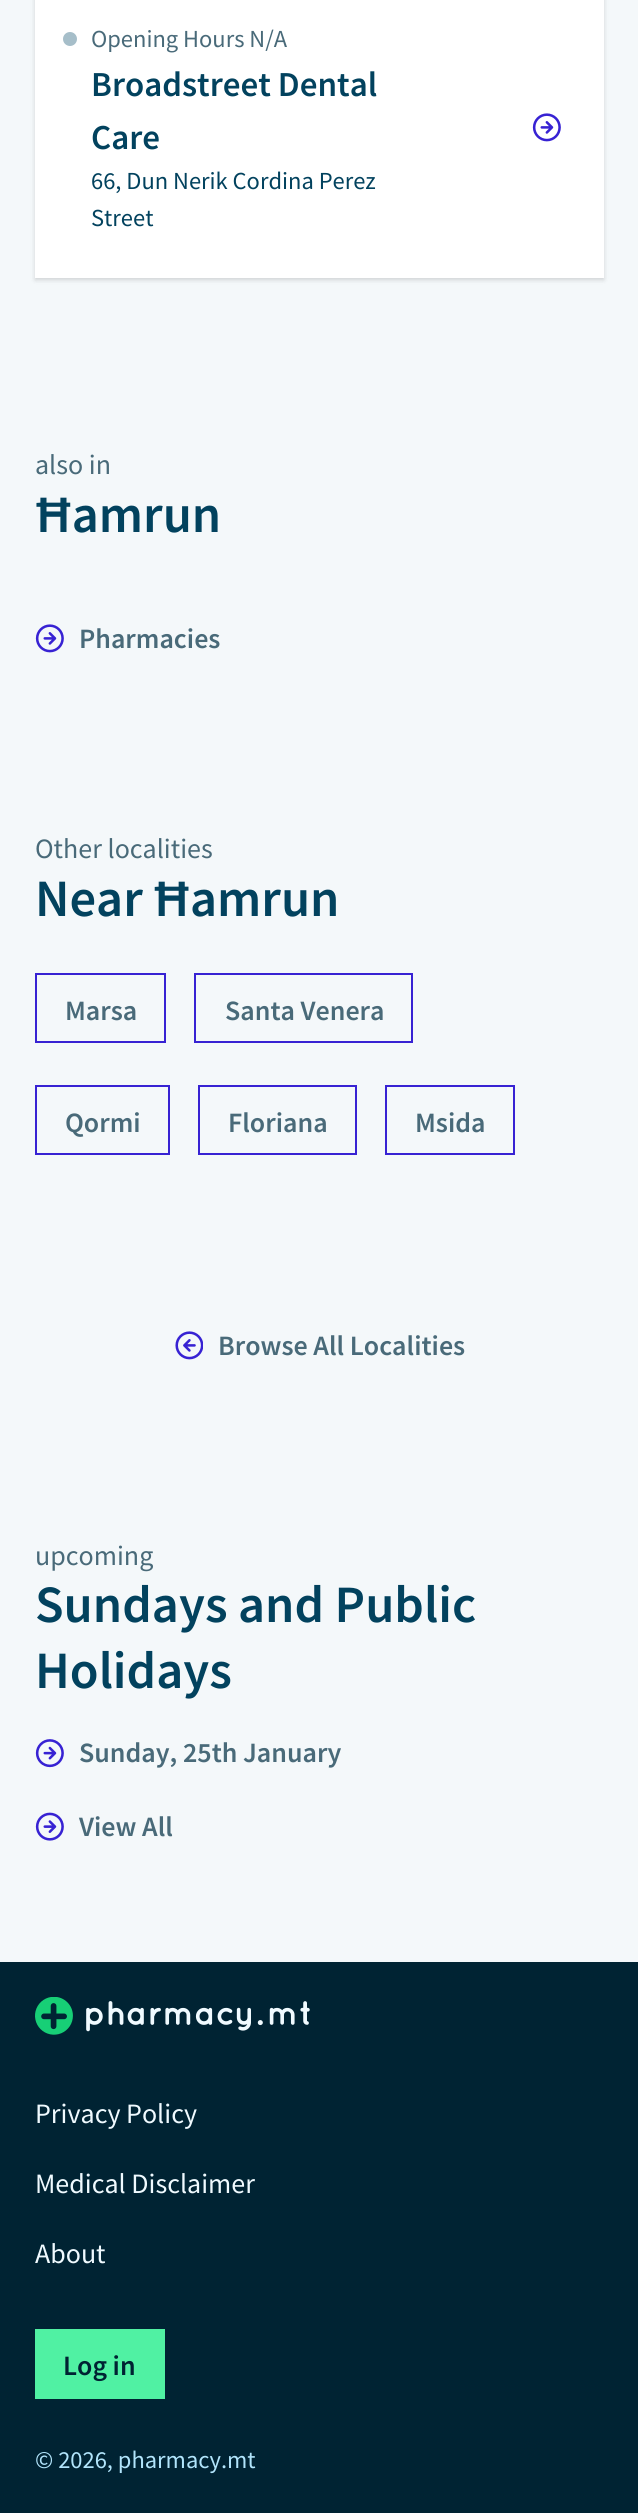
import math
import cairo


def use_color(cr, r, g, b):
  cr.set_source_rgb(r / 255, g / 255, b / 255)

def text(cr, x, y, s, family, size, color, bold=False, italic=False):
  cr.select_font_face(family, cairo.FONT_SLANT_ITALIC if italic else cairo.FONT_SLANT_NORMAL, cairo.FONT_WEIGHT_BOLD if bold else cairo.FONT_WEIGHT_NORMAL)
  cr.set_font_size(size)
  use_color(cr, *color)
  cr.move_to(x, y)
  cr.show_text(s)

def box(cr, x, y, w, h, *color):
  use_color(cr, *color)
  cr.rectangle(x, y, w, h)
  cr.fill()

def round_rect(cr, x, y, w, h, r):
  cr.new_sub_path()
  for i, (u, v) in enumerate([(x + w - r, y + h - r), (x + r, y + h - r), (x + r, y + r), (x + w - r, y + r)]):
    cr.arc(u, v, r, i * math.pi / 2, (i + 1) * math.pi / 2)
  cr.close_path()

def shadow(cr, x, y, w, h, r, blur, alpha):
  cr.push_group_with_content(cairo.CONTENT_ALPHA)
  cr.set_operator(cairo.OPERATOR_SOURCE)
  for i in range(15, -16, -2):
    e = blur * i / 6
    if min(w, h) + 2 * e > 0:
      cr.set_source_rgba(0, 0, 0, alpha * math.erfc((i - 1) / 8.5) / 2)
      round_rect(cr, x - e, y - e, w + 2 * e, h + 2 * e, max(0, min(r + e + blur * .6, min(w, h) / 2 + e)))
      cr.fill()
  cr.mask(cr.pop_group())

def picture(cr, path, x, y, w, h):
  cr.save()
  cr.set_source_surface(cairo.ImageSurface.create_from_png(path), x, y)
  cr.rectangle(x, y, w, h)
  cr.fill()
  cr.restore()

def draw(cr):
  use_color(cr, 244, 248, 250)
  cr.paint()
  use_color(cr, 0, 0, 0)
  shadow(cr, 35, -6, 569, 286, 0, 2, 0.06)
  shadow(cr, 35, -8, 569, 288, 0, 2.5, 0.1)
  box(cr, 35, 0, 569, 278, 255, 255, 255)
  use_color(cr, 166, 190, 201)
  cr.arc(70, 39, 7, 0, 2 * math.pi)
  cr.fill()
  picture(cr, "img_01.png", 532, 113, 29, 29)
  picture(cr, "img_02.png", 35, 624, 29, 29)
  cr.rectangle(36, 974, 129, 68)
  use_color(cr, 55, 34, 211)
  cr.stroke()
  cr.rectangle(195, 974, 217, 68)
  cr.stroke()
  cr.rectangle(36, 1086, 133, 68)
  cr.stroke()
  cr.rectangle(199, 1086, 157, 68)
  cr.stroke()
  cr.rectangle(386, 1086, 128, 68)
  cr.stroke()
  picture(cr, "img_03.png", 175, 1331, 28, 29)
  picture(cr, "img_04.png", 35, 1739, 29, 29)
  picture(cr, "img_05.png", 35, 1812, 29, 29)
  box(cr, 0, 1962, 638, 551, 0, 35, 51)
  picture(cr, "img_06.png", 35, 1997, 275, 38)
  box(cr, 35, 2329, 130, 70, 80, 241, 163)
  text(cr, 91, 47, "Opening Hours N/A", "Source Sans Pro", 24.5, (73, 106, 121))
  text(cr, 91, 96, "Broadstreet Dental", "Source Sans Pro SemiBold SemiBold", 35, (2, 66, 94))
  text(cr, 91, 149, "Care", "Source Sans Pro SemiBold SemiBold", 35, (2, 66, 94))
  text(cr, 91, 189, "66, Dun Nerik Cordina Perez", "Source Sans Pro", 24.5, (2, 66, 94))
  text(cr, 91, 226, "Street", "Source Sans Pro", 24.5, (2, 66, 94))
  text(cr, 35, 474, "also in", "Source Sans Pro", 28, (73, 106, 121))
  text(cr, 35, 532, "Ħamrun", "Source Sans Pro SemiBold SemiBold", 52.5, (2, 66, 94))
  text(cr, 79, 648, "Pharmacies", "Source Sans Pro SemiBold SemiBold", 28, (73, 106, 121))
  text(cr, 35, 858, "Other localities", "Source Sans Pro", 28, (73, 106, 121))
  text(cr, 35, 916, "Near Ħamrun", "Source Sans Pro SemiBold SemiBold", 52.5, (2, 66, 94))
  text(cr, 65, 1020, "Marsa", "Source Sans Pro SemiBold SemiBold", 28, (73, 106, 121))
  text(cr, 225, 1020, "Santa Venera", "Source Sans Pro SemiBold SemiBold", 28, (73, 106, 121))
  text(cr, 65, 1132, "Qormi", "Source Sans Pro SemiBold SemiBold", 28, (73, 106, 121))
  text(cr, 228, 1132, "Floriana", "Source Sans Pro SemiBold SemiBold", 28, (73, 106, 121))
  text(cr, 415, 1132, "Msida", "Source Sans Pro SemiBold SemiBold", 28, (73, 106, 121))
  text(cr, 218, 1355, "Browse All Localities", "Source Sans Pro SemiBold SemiBold", 28, (73, 106, 121))
  text(cr, 35, 1565, "upcoming", "Source Sans Pro", 28, (73, 106, 121))
  text(cr, 35, 1622, "Sundays and Public", "Source Sans Pro SemiBold SemiBold", 52.5, (2, 66, 94))
  text(cr, 35, 1688, "Holidays", "Source Sans Pro SemiBold SemiBold", 52.5, (2, 66, 94))
  text(cr, 79, 1762, "Sunday, 25th January", "Source Sans Pro SemiBold SemiBold", 28, (73, 106, 121))
  text(cr, 79, 1836, "View All", "Source Sans Pro SemiBold SemiBold", 28, (73, 106, 121))
  text(cr, 35, 2123, "Privacy Policy", "Source Sans Pro", 28, (240, 250, 255))
  text(cr, 35, 2193, "Medical Disclaimer", "Source Sans Pro", 28, (240, 250, 255))
  text(cr, 35, 2263, "About", "Source Sans Pro", 28, (240, 250, 255))
  text(cr, 63, 2375, "Log in", "Source Sans Pro SemiBold SemiBold", 28, (0, 35, 51))
  text(cr, 35, 2468, "© 2026, pharmacy.mt", "Source Sans Pro", 24.5, (177, 228, 251))


surface = cairo.ImageSurface(cairo.FORMAT_RGB24, 638, 2513)
cr = cairo.Context(surface)
options = cairo.FontOptions()
options.set_hint_metrics(cairo.HINT_METRICS_OFF)
options.set_hint_style(cairo.HINT_STYLE_NONE)
cr.set_font_options(options)
cr.set_miter_limit(4)
draw(cr)
surface.write_to_png("out.png")
